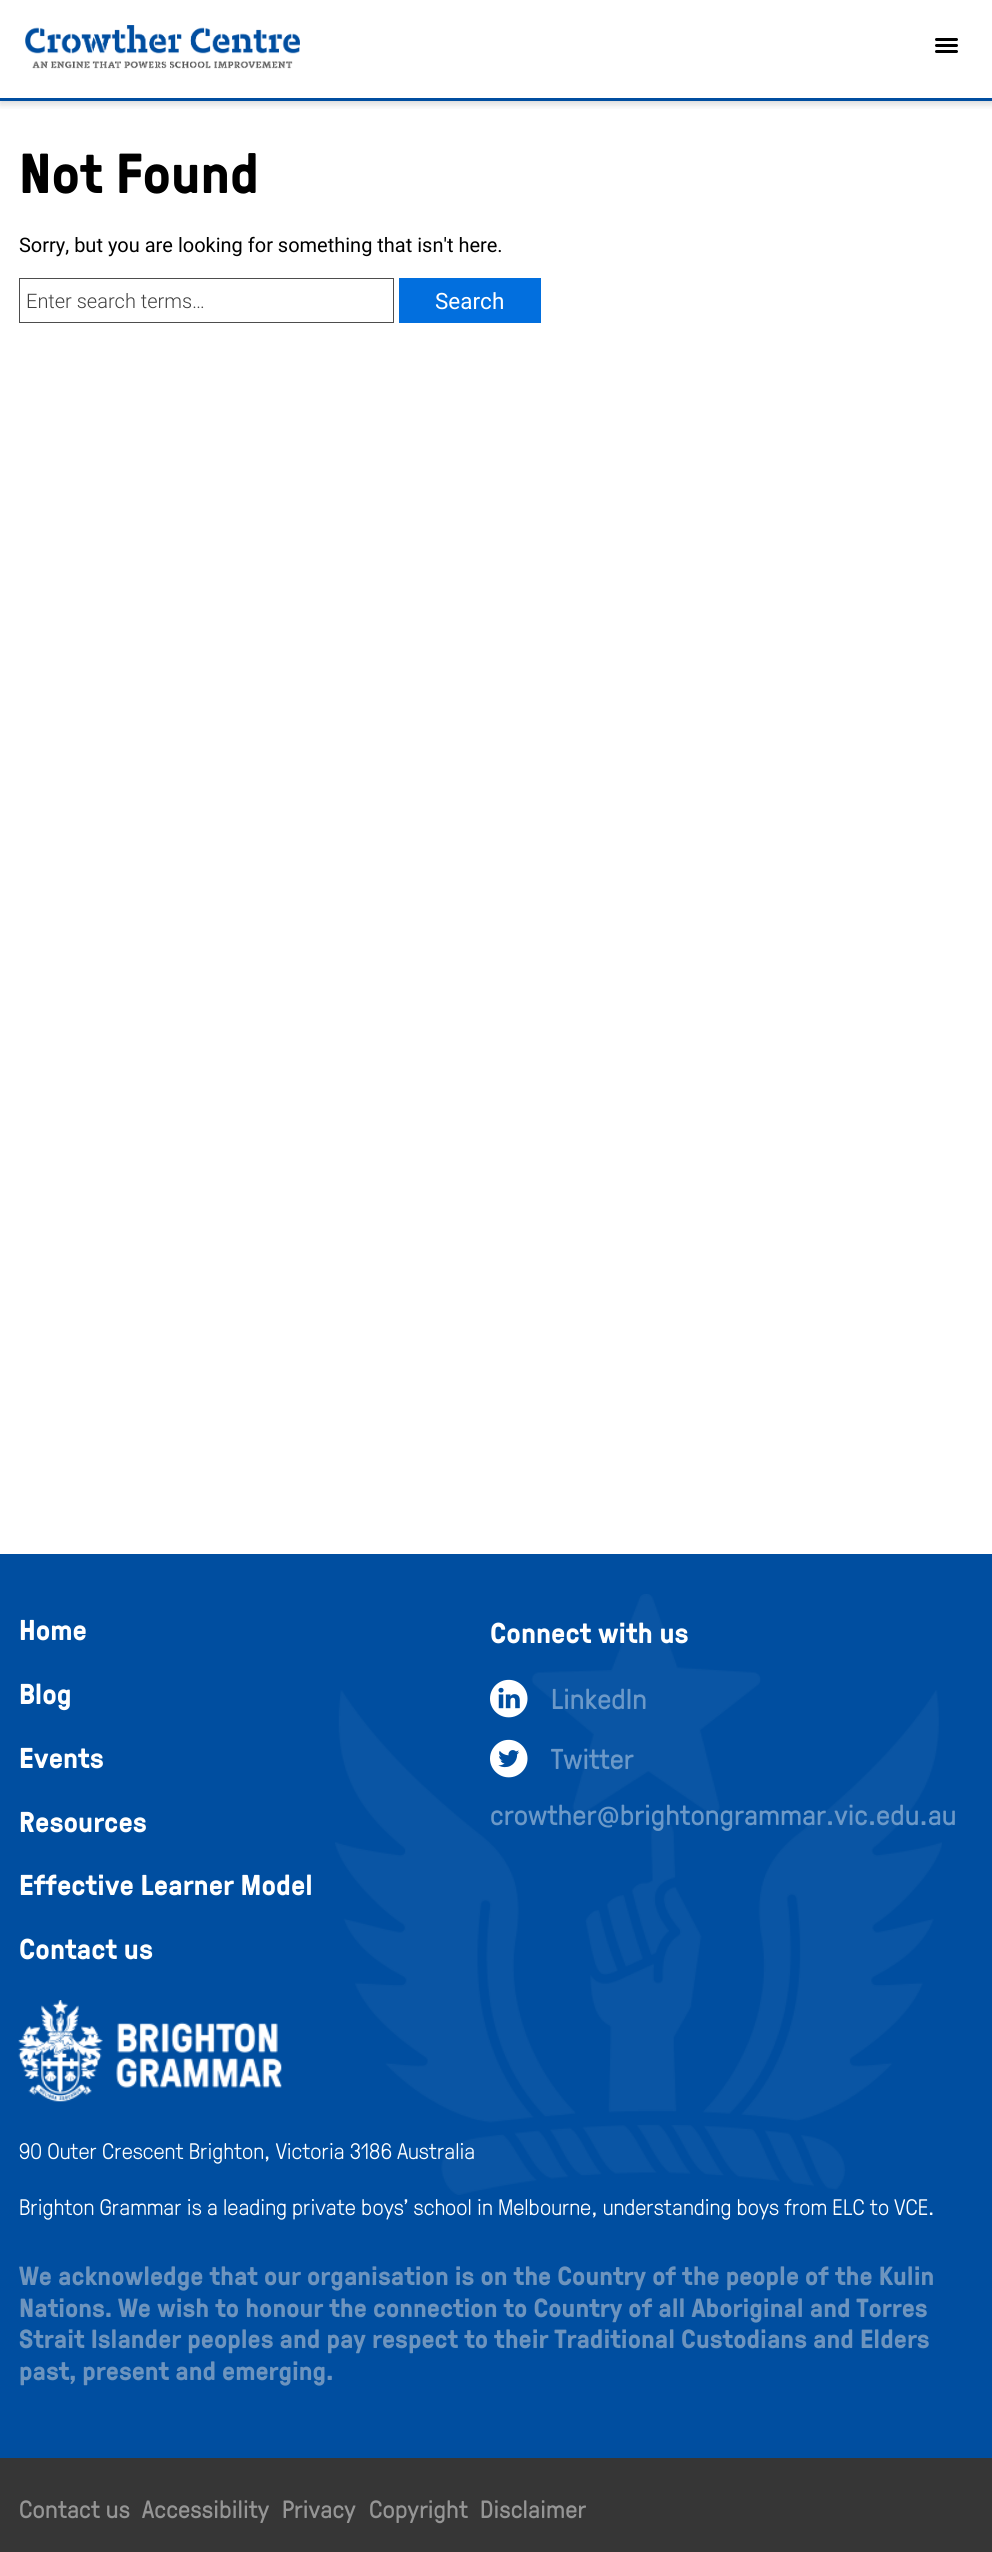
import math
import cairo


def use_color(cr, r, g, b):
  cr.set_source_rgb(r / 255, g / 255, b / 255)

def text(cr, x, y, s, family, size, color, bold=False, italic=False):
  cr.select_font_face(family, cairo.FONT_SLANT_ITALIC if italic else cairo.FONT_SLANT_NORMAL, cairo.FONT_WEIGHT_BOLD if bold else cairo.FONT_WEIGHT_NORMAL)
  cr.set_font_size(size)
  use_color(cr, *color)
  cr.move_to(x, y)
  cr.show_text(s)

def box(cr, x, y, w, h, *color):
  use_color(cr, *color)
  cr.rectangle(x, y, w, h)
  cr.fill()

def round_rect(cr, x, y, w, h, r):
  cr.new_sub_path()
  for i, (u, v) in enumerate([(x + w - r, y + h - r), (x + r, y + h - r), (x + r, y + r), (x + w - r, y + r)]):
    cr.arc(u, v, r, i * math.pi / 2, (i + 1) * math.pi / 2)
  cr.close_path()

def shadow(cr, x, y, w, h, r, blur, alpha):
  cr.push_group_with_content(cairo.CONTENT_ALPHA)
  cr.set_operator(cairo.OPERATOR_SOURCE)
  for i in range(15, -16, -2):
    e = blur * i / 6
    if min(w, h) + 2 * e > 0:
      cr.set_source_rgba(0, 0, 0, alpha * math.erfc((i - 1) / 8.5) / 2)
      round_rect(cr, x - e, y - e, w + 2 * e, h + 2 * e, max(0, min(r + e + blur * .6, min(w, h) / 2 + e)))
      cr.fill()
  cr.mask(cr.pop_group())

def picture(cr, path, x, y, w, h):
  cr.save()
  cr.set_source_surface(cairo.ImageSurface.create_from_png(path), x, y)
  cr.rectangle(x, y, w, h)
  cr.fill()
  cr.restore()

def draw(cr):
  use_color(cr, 255, 255, 255)
  cr.paint()
  cr.save()
  cr.rectangle(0, 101, 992, 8)
  cr.clip()
  use_color(cr, 0, 0, 0)
  shadow(cr, 0, 4, 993, 100, 0, 4, 0.16)
  cr.restore()
  box(cr, 0, 98, 992, 3, 0, 78, 160)
  picture(cr, "img_01.png", 25, 25, 275, 44)
  use_color(cr, 0, 0, 0)
  round_rect(cr, 935, 44, 23, 3, 1.5)
  cr.fill()
  round_rect(cr, 935, 38, 23, 3, 1.5)
  cr.fill()
  round_rect(cr, 935, 50, 23, 3, 1.5)
  cr.fill()
  cr.rectangle(19.5, 278.5, 374, 44)
  use_color(cr, 77, 77, 77)
  cr.set_line_width(1)
  cr.stroke()
  box(cr, 399, 278, 142, 45, 2, 111, 222)
  box(cr, 0, 1554, 992, 904, 0, 78, 160)
  picture(cr, "img_02.png", 335, 1594, 607, 601)
  picture(cr, "img_03.png", 490, 1679, 38, 39)
  picture(cr, "img_04.png", 490, 1739, 38, 39)
  picture(cr, "img_05.png", 18, 2000, 264, 102)
  box(cr, 0, 2458, 992, 94, 54, 54, 54)
  text(cr, 19, 193, "Not Found", "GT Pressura", 56.25, (0, 0, 0), bold=True)
  text(cr, 19, 252, "Sorry, but you are looking for something that isn't here.", "Roboto", 20, (0, 0, 0))
  text(cr, 26, 308, "Enter search terms…", "Roboto Light", 20, (64, 64, 64))
  text(cr, 435, 309, "Search", "Roboto", 22.5, (255, 255, 255))
  text(cr, 19, 1640, "Home", "GT Pressura", 28.75, (255, 255, 255), bold=True)
  text(cr, 19, 1704, "Blog", "GT Pressura", 28.75, (255, 255, 255), bold=True)
  text(cr, 19, 1768, "Events", "GT Pressura", 28.75, (255, 255, 255), bold=True)
  text(cr, 19, 1832, "Resources", "GT Pressura", 28.75, (255, 255, 255), bold=True)
  text(cr, 19, 1895, "Effective Learner Model", "GT Pressura", 28.75, (255, 255, 255), bold=True)
  text(cr, 19, 1959, "Contact us", "GT Pressura", 28.75, (255, 255, 255), bold=True)
  text(cr, 490, 1643, "Connect with us", "GT Pressura", 28.75, (255, 255, 255), bold=True)
  text(cr, 551, 1709, "LinkedIn", "GT Pressura", 28.75, (108, 153, 200))
  text(cr, 551, 1769, "Twitter", "GT Pressura", 28.75, (108, 153, 200))
  text(cr, 490, 1825, "crowther@brightongrammar.vic.edu.au", "GT Pressura", 28.75, (108, 153, 200))
  text(cr, 19, 2159, "90 Outer Crescent Brighton, Victoria 3186 Australia", "GT Pressura Light", 22.5, (255, 255, 255))
  text(cr, 19, 2215, "Brighton Grammar is a leading private boys’ school in Melbourne, understanding boys from ELC to VCE.", "GT Pressura Light", 22.5, (255, 255, 255))
  text(cr, 19, 2285, "We acknowledge that our organisation is on the Country of the people of the Kulin", "GT Pressura", 26.25, (109, 148, 190), bold=True)
  text(cr, 19, 2317, "Nations. We wish to honour the connection to Country of all Aboriginal and Torres", "GT Pressura", 26.25, (109, 148, 190), bold=True)
  text(cr, 19, 2348, "Strait Islander peoples and pay respect to their Traditional Custodians and Elders", "GT Pressura", 26.25, (109, 148, 190), bold=True)
  text(cr, 19, 2380, "past, present and emerging.", "GT Pressura", 26.25, (109, 148, 190), bold=True)
  text(cr, 19, 2518, "Contact us", "GT Pressura", 25, (149, 149, 149))
  text(cr, 142, 2518, "Accessibility", "GT Pressura", 25, (149, 149, 149))
  text(cr, 282, 2518, "Privacy", "GT Pressura", 25, (149, 149, 149))
  text(cr, 369, 2518, "Copyright", "GT Pressura", 25, (149, 149, 149))
  text(cr, 480, 2518, "Disclaimer", "GT Pressura", 25, (149, 149, 149))


surface = cairo.ImageSurface(cairo.FORMAT_RGB24, 992, 2552)
cr = cairo.Context(surface)
options = cairo.FontOptions()
options.set_hint_metrics(cairo.HINT_METRICS_OFF)
options.set_hint_style(cairo.HINT_STYLE_NONE)
cr.set_font_options(options)
cr.set_miter_limit(4)
draw(cr)
surface.write_to_png("out.png")
